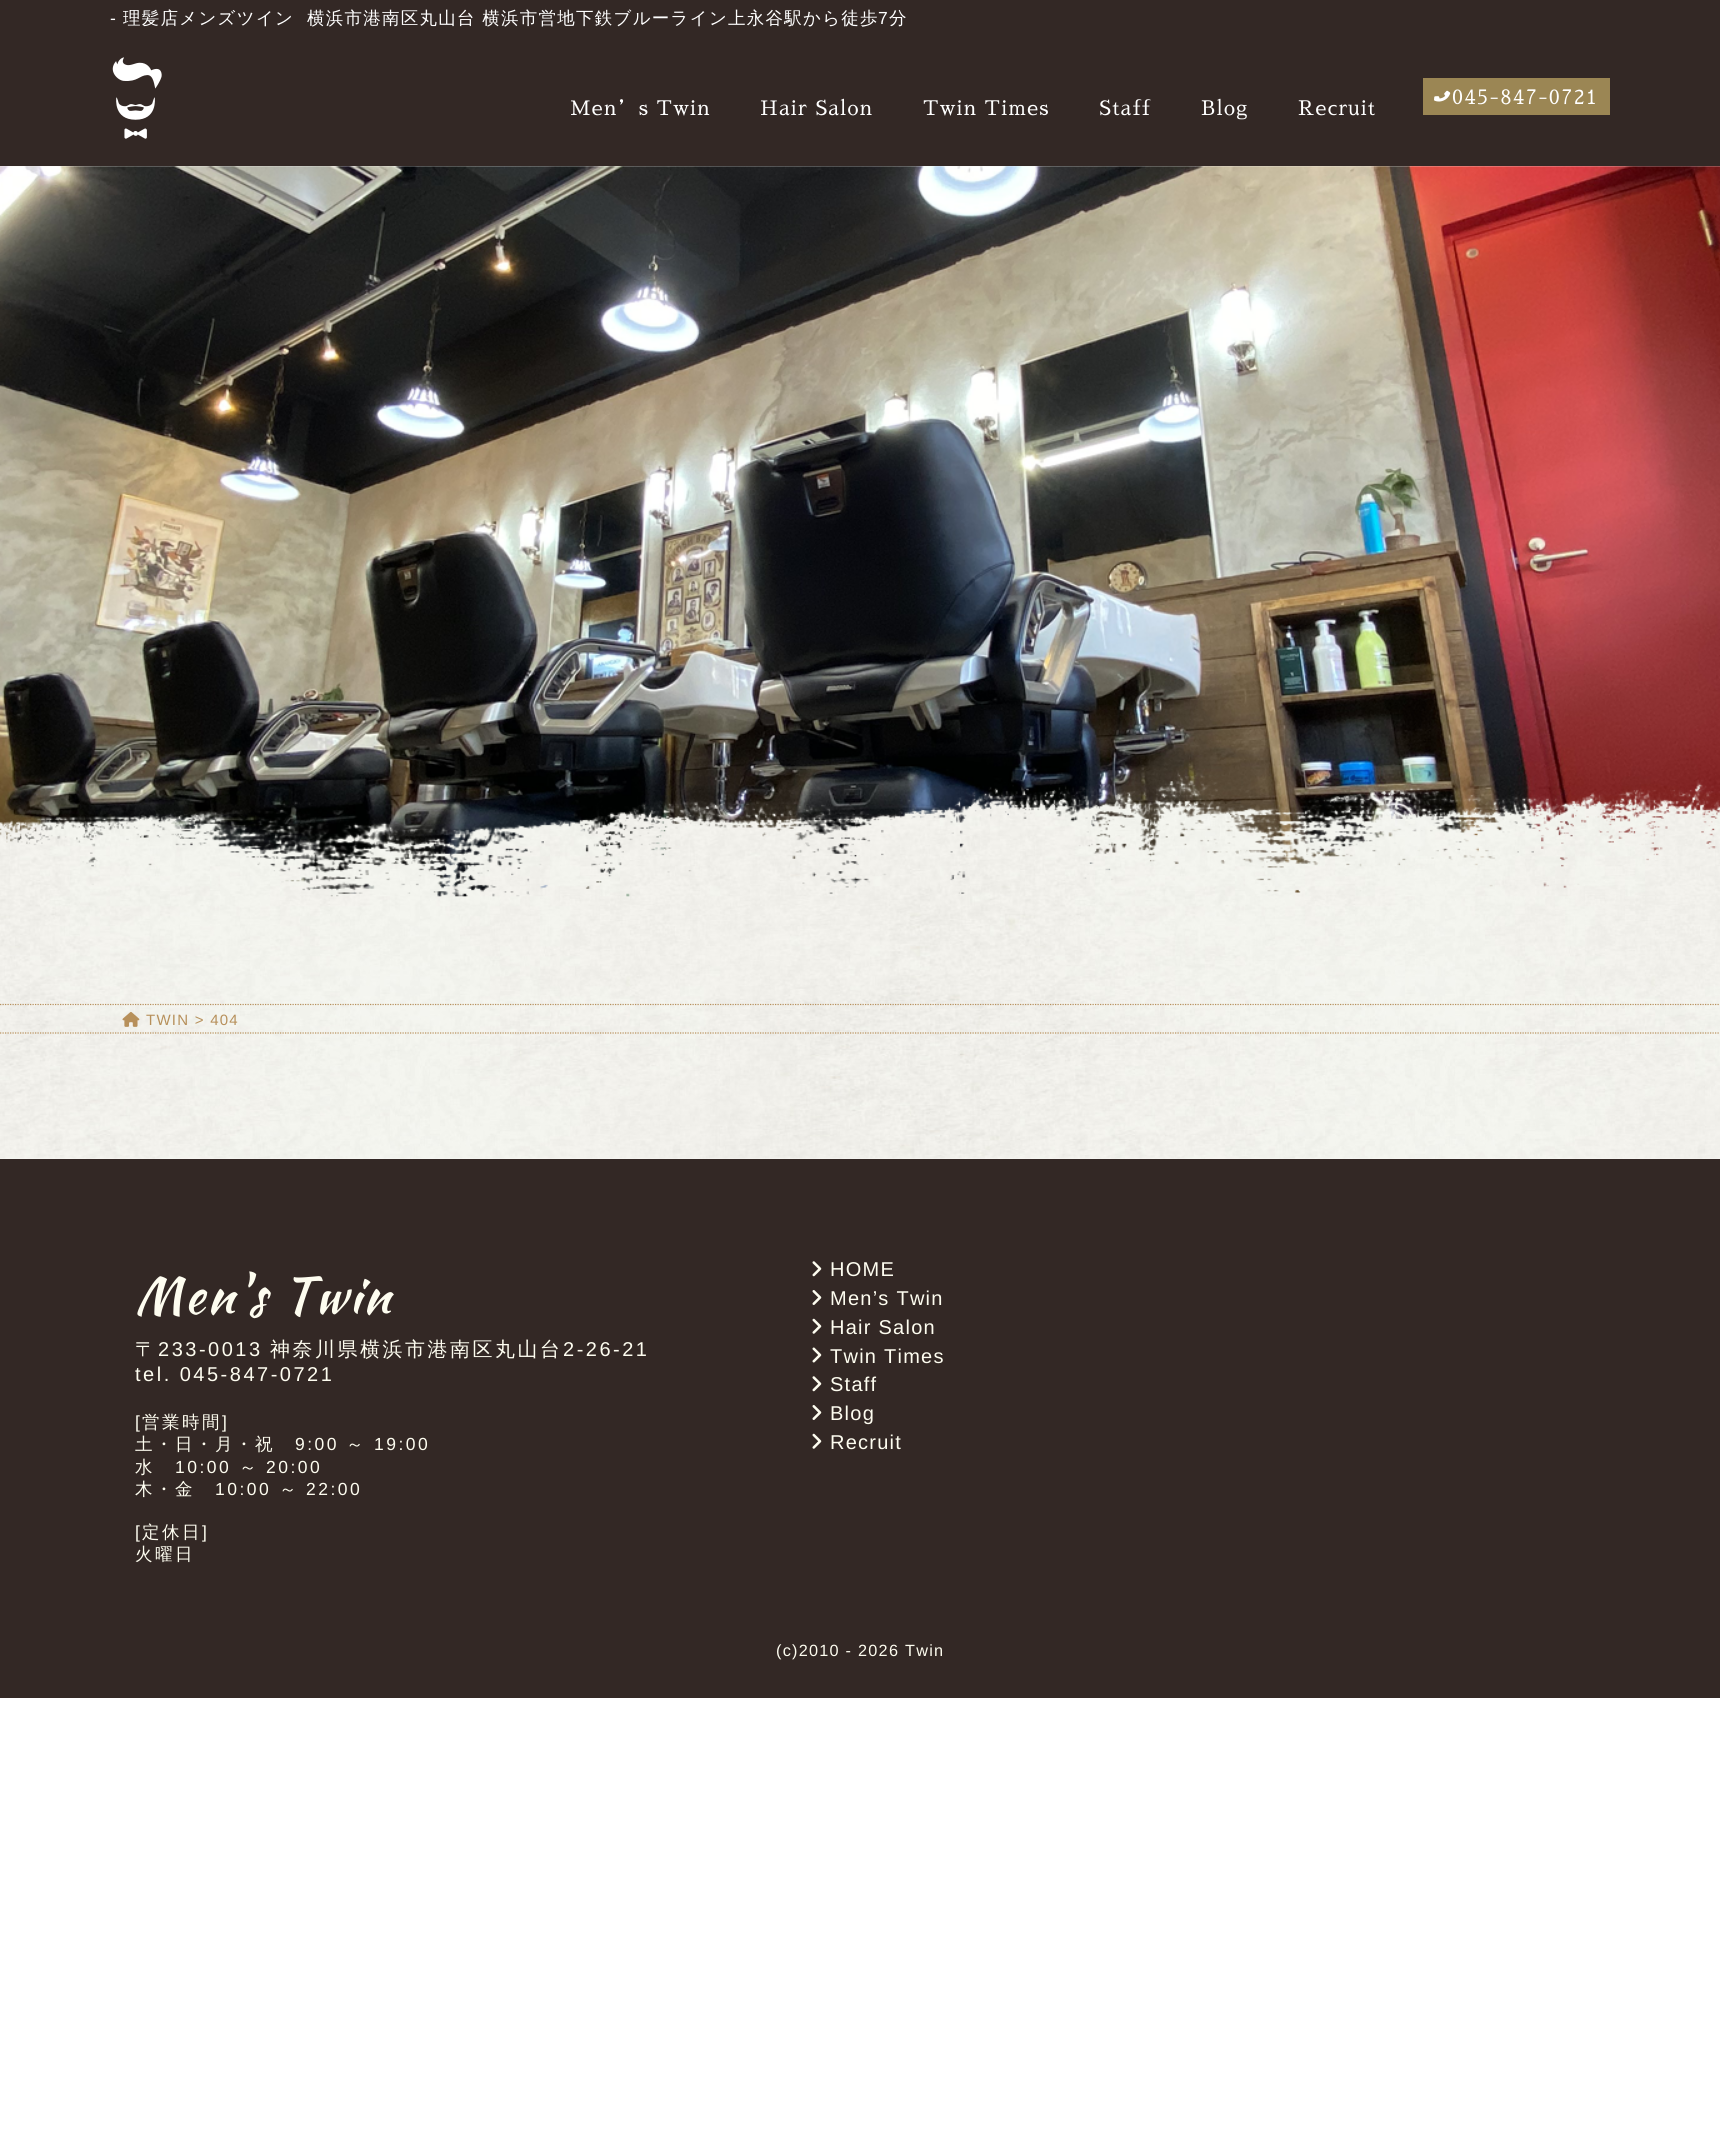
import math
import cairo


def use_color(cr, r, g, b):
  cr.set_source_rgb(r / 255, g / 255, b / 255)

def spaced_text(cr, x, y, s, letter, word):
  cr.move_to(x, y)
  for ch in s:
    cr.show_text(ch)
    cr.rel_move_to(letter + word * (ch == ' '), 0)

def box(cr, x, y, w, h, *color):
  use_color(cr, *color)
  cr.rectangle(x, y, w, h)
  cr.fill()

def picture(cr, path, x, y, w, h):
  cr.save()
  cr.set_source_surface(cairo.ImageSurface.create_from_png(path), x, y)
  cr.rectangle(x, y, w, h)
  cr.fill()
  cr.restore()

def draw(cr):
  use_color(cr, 255, 255, 255)
  cr.paint()
  box(cr, 0, 0, 1720, 166, 51, 40, 37)
  picture(cr, "img_01.png", 112, 57, 50, 82)
  box(cr, 1423, 78, 187, 37, 155, 134, 84)
  picture(cr, "img_02.png", 1434, 90, 17, 12)
  picture(cr, "img_03.png", 0, 166, 1720, 993)
  picture(cr, "img_04.png", 0, 166, 1720, 731)
  cr.new_path()
  cr.move_to(0, 1004.5)
  cr.line_to(1720, 1004.5)
  use_color(cr, 183, 144, 91)
  cr.set_line_width(1.2)
  cr.set_dash([1.25, 1.25])
  cr.stroke()
  cr.new_path()
  cr.move_to(0, 1033)
  cr.line_to(1720, 1033)
  cr.stroke()
  picture(cr, "img_05.png", 122, 1011, 18, 16)
  box(cr, 0, 1159, 1720, 539, 51, 40, 37)
  picture(cr, "img_06.png", 812, 1261, 10, 16)
  picture(cr, "img_07.png", 812, 1290, 10, 15)
  picture(cr, "img_08.png", 812, 1318, 10, 16)
  picture(cr, "img_09.png", 812, 1347, 10, 16)
  picture(cr, "img_06.png", 812, 1376, 10, 16)
  picture(cr, "img_07.png", 812, 1405, 10, 15)
  picture(cr, "img_08.png", 812, 1433, 10, 16)
  cr.select_font_face("Liberation Sans")
  cr.set_font_size(17.5)
  use_color(cr, 255, 255, 255)
  spaced_text(cr, 110, 24, "-", 1.25, 0)
  cr.select_font_face("WenQuanYi Zen Hei Medium")
  spaced_text(cr, 123, 24, "理髪店メンズツイン", 1.25, 0)
  spaced_text(cr, 307, 24, "横浜市港南区丸山台 横浜市営地下鉄ブルーライン上永谷駅から徒歩", 1.25, 0)
  cr.select_font_face("Liberation Sans")
  spaced_text(cr, 878, 24, "7", 1.25, 0)
  cr.select_font_face("WenQuanYi Zen Hei Medium")
  spaced_text(cr, 889, 24, "分", 1.25, 0)
  cr.select_font_face("Sawarabi Mincho")
  cr.set_font_size(20)
  spaced_text(cr, 570, 115, "Men’s Twin", 1.25, 0)
  spaced_text(cr, 760, 115, "Hair Salon", 1.25, 0)
  spaced_text(cr, 923, 115, "Twin Times", 1.25, 0)
  spaced_text(cr, 1099, 115, "Staff", 1.25, 0)
  spaced_text(cr, 1201, 115, "Blog", 1.25, 0)
  spaced_text(cr, 1298, 115, "Recruit", 1.25, 0)
  spaced_text(cr, 1452, 104, "045-847-0721", 1.25, 0)
  cr.select_font_face("Liberation Sans")
  cr.set_font_size(15)
  use_color(cr, 183, 144, 91)
  spaced_text(cr, 146, 1025, "TWIN > 404", 1.25, 0)
  cr.select_font_face("Kaushan Script")
  cr.set_font_size(50)
  use_color(cr, 254, 253, 240)
  spaced_text(cr, 135, 1313, "Men's Twin", 2.5, 0)
  cr.select_font_face("WenQuanYi Zen Hei Medium")
  cr.set_font_size(20)
  spaced_text(cr, 135, 1356, "〒", 2.5, 0)
  cr.select_font_face("Liberation Sans")
  spaced_text(cr, 158, 1356, "233-0013", 2.5, 0)
  cr.select_font_face("WenQuanYi Zen Hei Medium")
  spaced_text(cr, 270, 1356, "神奈川県横浜市港南区丸山台", 2.5, 0)
  cr.select_font_face("Liberation Sans")
  spaced_text(cr, 563, 1356, "2-26-21", 2.5, 0)
  spaced_text(cr, 135, 1381, "tel. 045-847-0721", 2.5, 0)
  cr.set_font_size(17.5)
  spaced_text(cr, 135, 1428, "[", 2.5, 0)
  cr.select_font_face("WenQuanYi Zen Hei Medium")
  spaced_text(cr, 142, 1428, "営業時間", 2.5, 0)
  cr.select_font_face("Liberation Sans")
  spaced_text(cr, 222, 1428, "]", 2.5, 0)
  cr.select_font_face("WenQuanYi Zen Hei Medium")
  spaced_text(cr, 135, 1450, "土・日・月・祝", 2.5, 0)
  cr.select_font_face("Liberation Sans")
  spaced_text(cr, 295, 1450, "9:00", 2.5, 0)
  cr.select_font_face("WenQuanYi Zen Hei Medium")
  spaced_text(cr, 346, 1450, "～", 2.5, 0)
  cr.select_font_face("Liberation Sans")
  spaced_text(cr, 374, 1450, "19:00", 2.5, 0)
  cr.select_font_face("WenQuanYi Zen Hei Medium")
  spaced_text(cr, 135, 1473, "水", 2.5, 0)
  cr.select_font_face("Liberation Sans")
  spaced_text(cr, 175, 1473, "10:00", 2.5, 0)
  cr.select_font_face("WenQuanYi Zen Hei Medium")
  spaced_text(cr, 239, 1473, "～", 2.5, 0)
  cr.select_font_face("Liberation Sans")
  spaced_text(cr, 266, 1473, "20:00", 2.5, 0)
  cr.select_font_face("WenQuanYi Zen Hei Medium")
  spaced_text(cr, 135, 1495, "木・金", 2.5, 0)
  cr.select_font_face("Liberation Sans")
  spaced_text(cr, 215, 1495, "10:00", 2.5, 0)
  cr.select_font_face("WenQuanYi Zen Hei Medium")
  spaced_text(cr, 279, 1495, "～", 2.5, 0)
  cr.select_font_face("Liberation Sans")
  spaced_text(cr, 306, 1495, "22:00", 2.5, 0)
  spaced_text(cr, 135, 1538, "[", 2.5, 0)
  cr.select_font_face("WenQuanYi Zen Hei Medium")
  spaced_text(cr, 142, 1538, "定休日", 2.5, 0)
  cr.select_font_face("Liberation Sans")
  spaced_text(cr, 202, 1538, "]", 2.5, 0)
  cr.select_font_face("WenQuanYi Zen Hei Medium")
  spaced_text(cr, 135, 1560, "火曜日", 2.5, 0)
  cr.select_font_face("Liberation Sans")
  cr.set_font_size(20)
  spaced_text(cr, 830, 1276, "HOME", 1.25, 0)
  spaced_text(cr, 830, 1305, "Men’s Twin", 1.25, 0)
  spaced_text(cr, 830, 1334, "Hair Salon", 1.25, 0)
  spaced_text(cr, 830, 1363, "Twin Times", 1.25, 0)
  spaced_text(cr, 830, 1391, "Staff", 1.25, 0)
  spaced_text(cr, 830, 1420, "Blog", 1.25, 0)
  spaced_text(cr, 830, 1449, "Recruit", 1.25, 0)
  cr.set_font_size(16.25)
  spaced_text(cr, 776, 1656, "(c)2010 - 2026 Twin", 1.25, 0)


surface = cairo.ImageSurface(cairo.FORMAT_RGB24, 1720, 2150)
cr = cairo.Context(surface)
options = cairo.FontOptions()
options.set_hint_metrics(cairo.HINT_METRICS_OFF)
options.set_hint_style(cairo.HINT_STYLE_NONE)
cr.set_font_options(options)
cr.set_miter_limit(4)
draw(cr)
surface.write_to_png("out.png")
